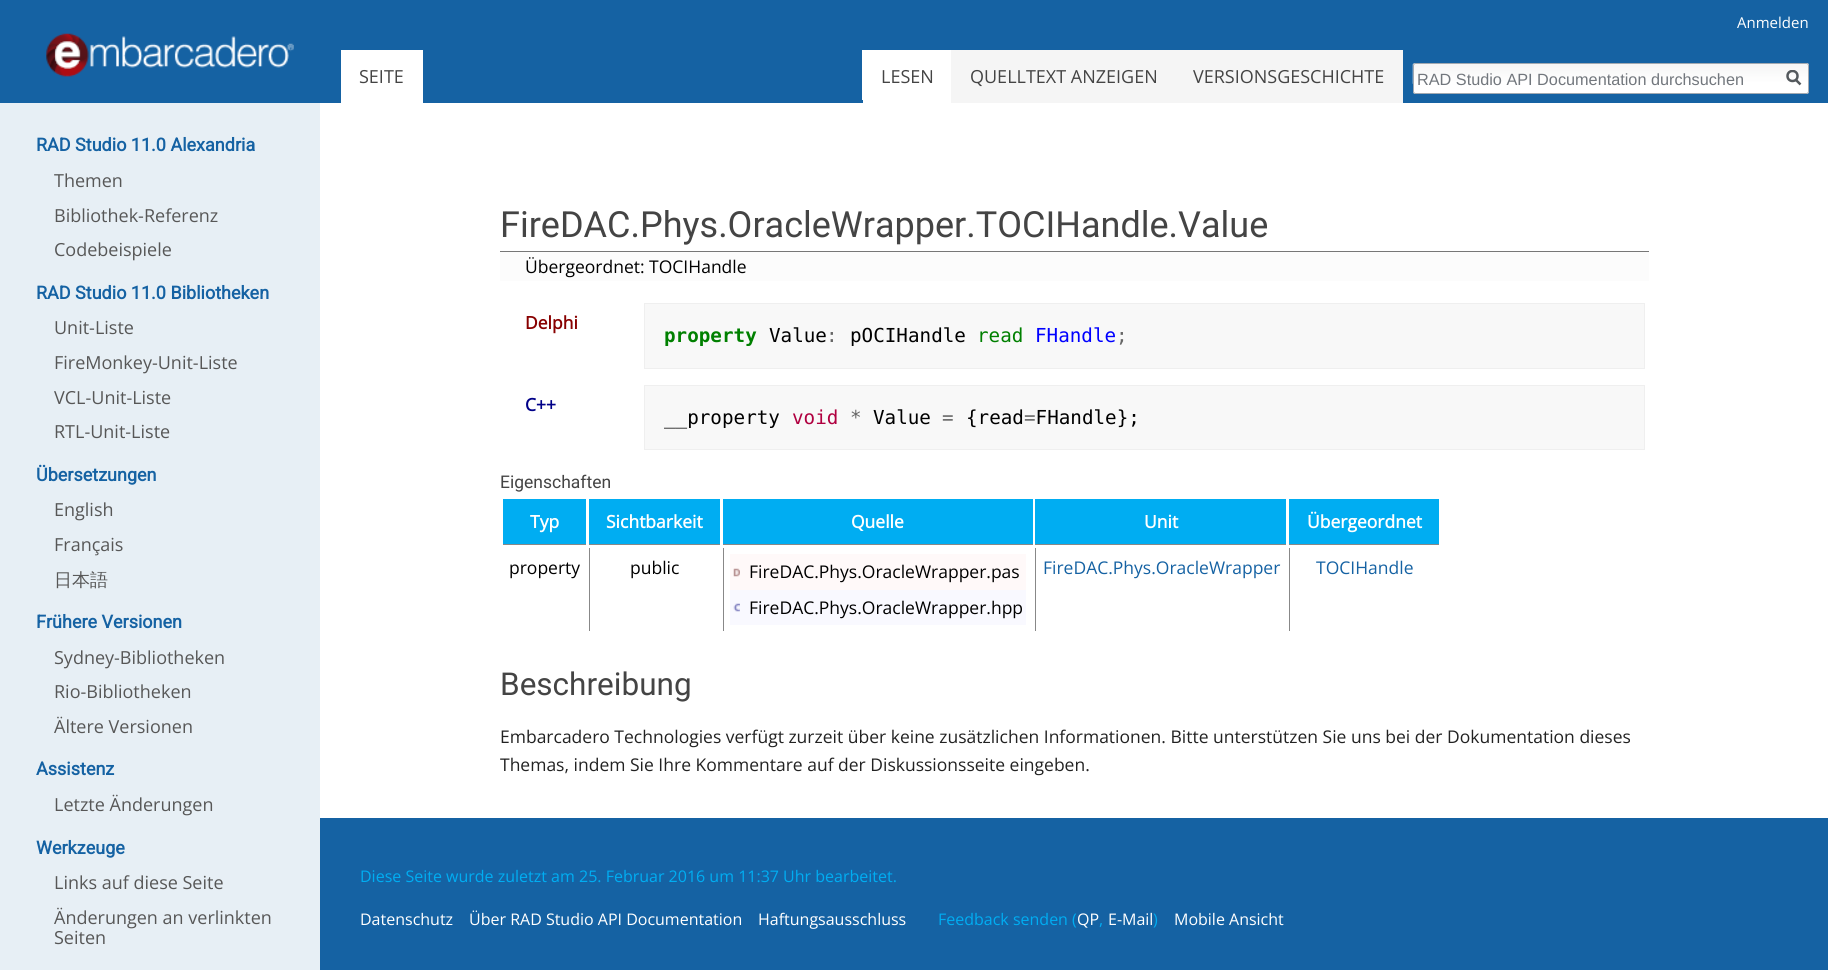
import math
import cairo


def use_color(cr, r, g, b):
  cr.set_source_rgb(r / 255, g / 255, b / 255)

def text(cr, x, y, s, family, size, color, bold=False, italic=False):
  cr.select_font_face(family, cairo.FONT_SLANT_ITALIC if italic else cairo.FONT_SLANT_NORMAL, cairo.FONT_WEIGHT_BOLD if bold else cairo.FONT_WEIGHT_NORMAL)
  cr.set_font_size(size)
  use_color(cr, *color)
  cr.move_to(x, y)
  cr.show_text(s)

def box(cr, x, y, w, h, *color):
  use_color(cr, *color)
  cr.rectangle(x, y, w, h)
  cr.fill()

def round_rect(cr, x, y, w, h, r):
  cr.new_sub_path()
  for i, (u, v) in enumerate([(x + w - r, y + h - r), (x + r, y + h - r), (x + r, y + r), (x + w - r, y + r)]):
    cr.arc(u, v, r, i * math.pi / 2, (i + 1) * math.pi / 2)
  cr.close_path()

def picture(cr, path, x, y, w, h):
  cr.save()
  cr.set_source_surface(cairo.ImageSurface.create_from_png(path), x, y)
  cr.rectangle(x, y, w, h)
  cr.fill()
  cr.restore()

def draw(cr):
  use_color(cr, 231, 239, 245)
  cr.paint()
  box(cr, 0, 0, 1828, 103, 21, 98, 163)
  box(cr, 341, 50, 82, 53, 255, 255, 255)
  box(cr, 862, 50, 1, 50, 255, 255, 255)
  box(cr, 863, 50, 88, 53, 255, 255, 255)
  box(cr, 951, 50, 452, 53, 245, 245, 245)
  use_color(cr, 255, 255, 255)
  round_rect(cr, 1413, 63, 396, 31, 2.5)
  cr.fill()
  picture(cr, "img_01.png", 1412, 63, 397, 21)
  round_rect(cr, 1413.5, 63.5, 395, 30, 2)
  use_color(cr, 162, 169, 177)
  cr.set_line_width(1)
  cr.stroke()
  cr.new_path()
  cr.move_to(1800.5, 84.5)
  cr.line_to(1795.5, 79.5)
  use_color(cr, 84, 89, 93)
  cr.set_line_width(2.5)
  cr.stroke()
  cr.save()
  cr.rectangle(1786, 70, 15, 16)
  cr.clip()
  cr.arc(1792.5, 76, 5, 0, 2 * math.pi)
  cr.stroke()
  cr.restore()
  picture(cr, "img_02.png", 46, 33, 248, 44)
  box(cr, 320, 103, 1508, 715, 255, 255, 255)
  box(cr, 500, 252, 1149, 29, 252, 252, 252)
  box(cr, 500, 251, 1149, 1, 119, 119, 119)
  use_color(cr, 248, 248, 248)
  cr.rectangle(644.5, 303.5, 1000, 65)
  cr.fill_preserve()
  use_color(cr, 239, 239, 239)
  cr.set_line_width(1)
  cr.stroke()
  use_color(cr, 248, 248, 248)
  cr.rectangle(644.5, 385.5, 1000, 64)
  cr.fill_preserve()
  use_color(cr, 239, 239, 239)
  cr.stroke()
  box(cr, 503, 499, 83, 45, 0, 173, 242)
  box(cr, 503, 544, 83, 1, 136, 136, 136)
  box(cr, 589, 499, 131, 45, 0, 173, 242)
  box(cr, 589, 544, 131, 1, 136, 136, 136)
  box(cr, 723, 499, 310, 45, 0, 173, 242)
  box(cr, 723, 544, 310, 1, 136, 136, 136)
  box(cr, 1035, 499, 251, 45, 0, 173, 242)
  box(cr, 1035, 544, 251, 1, 136, 136, 136)
  box(cr, 1289, 499, 150, 45, 0, 173, 242)
  box(cr, 1289, 544, 150, 1, 136, 136, 136)
  box(cr, 589, 548, 1, 83, 136, 136, 136)
  box(cr, 723, 548, 1, 83, 136, 136, 136)
  box(cr, 730, 554, 296, 36, 255, 249, 249)
  picture(cr, "img_03.png", 733, 568, 7, 9)
  box(cr, 730, 590, 296, 35, 249, 249, 255)
  picture(cr, "img_04.png", 733, 603, 7, 9)
  box(cr, 1035, 548, 1, 83, 136, 136, 136)
  box(cr, 1289, 548, 1, 83, 136, 136, 136)
  box(cr, 320, 818, 1508, 152, 21, 98, 163)
  text(cr, 1737, 28, "Anmelden", "Open Sans", 15, (255, 255, 255))
  text(cr, 359, 83, "SEITE", "Open Sans", 18, (68, 68, 68))
  text(cr, 881, 83, "LESEN", "Open Sans", 18, (68, 68, 68))
  text(cr, 970, 83, "QUELLTEXT ANZEIGEN", "Open Sans", 18, (68, 68, 68))
  text(cr, 1193, 83, "VERSIONSGESCHICHTE", "Open Sans", 18, (68, 68, 68))
  text(cr, 1417, 85, "RAD Studio API Documentation durchsuchen", "Liberation Sans", 16.25, (114, 119, 125))
  text(cr, 36, 151, "RAD Studio 11.0 Alexandria", "Roboto", 18, (21, 98, 163), bold=True)
  text(cr, 54, 187, "Themen", "Open Sans", 18, (87, 87, 87))
  text(cr, 54, 222, "Bibliothek-Referenz", "Open Sans", 18, (87, 87, 87))
  text(cr, 54, 256, "Codebeispiele", "Open Sans", 18, (87, 87, 87))
  text(cr, 36, 299, "RAD Studio 11.0 Bibliotheken", "Roboto", 18, (21, 98, 163), bold=True)
  text(cr, 54, 334, "Unit-Liste", "Open Sans", 18, (87, 87, 87))
  text(cr, 54, 369, "FireMonkey-Unit-Liste", "Open Sans", 18, (87, 87, 87))
  text(cr, 54, 404, "VCL-Unit-Liste", "Open Sans", 18, (87, 87, 87))
  text(cr, 54, 438, "RTL-Unit-Liste", "Open Sans", 18, (87, 87, 87))
  text(cr, 36, 481, "Übersetzungen", "Roboto", 18, (21, 98, 163), bold=True)
  text(cr, 54, 516, "English", "Open Sans", 18, (87, 87, 87))
  text(cr, 54, 551, "Français", "Open Sans", 18, (87, 87, 87))
  text(cr, 54, 586, "日本語", "WenQuanYi Zen Hei Medium", 18, (87, 87, 87))
  text(cr, 36, 628, "Frühere Versionen", "Roboto", 18, (21, 98, 163), bold=True)
  text(cr, 54, 664, "Sydney-Bibliotheken", "Open Sans", 18, (87, 87, 87))
  text(cr, 54, 698, "Rio-Bibliotheken", "Open Sans", 18, (87, 87, 87))
  text(cr, 54, 733, "Ältere Versionen", "Open Sans", 18, (87, 87, 87))
  text(cr, 36, 775, "Assistenz", "Roboto", 18, (21, 98, 163), bold=True)
  text(cr, 54, 811, "Letzte Änderungen", "Open Sans", 18, (87, 87, 87))
  text(cr, 36, 854, "Werkzeuge", "Roboto", 18, (21, 98, 163), bold=True)
  text(cr, 54, 889, "Links auf diese Seite", "Open Sans", 18, (87, 87, 87))
  text(cr, 54, 924, "Änderungen an verlinkten", "Open Sans", 18, (87, 87, 87))
  text(cr, 54, 944, "Seiten", "Open Sans", 18, (87, 87, 87))
  text(cr, 500, 237, "FireDAC.Phys.OracleWrapper.TOCIHandle.Value", "Roboto", 36, (68, 68, 68))
  text(cr, 525, 273, "Übergeordnet: TOCIHandle", "Open Sans", 17.5, (0, 0, 0))
  text(cr, 525, 329, "Delphi", "Open Sans", 17.5, (136, 0, 0), bold=True)
  text(cr, 664, 342, "property", "DejaVu Sans Mono", 19.25, (0, 128, 0), bold=True)
  text(cr, 769, 342, "Value", "DejaVu Sans Mono", 19.25, (0, 0, 0))
  text(cr, 826, 342, ":", "DejaVu Sans Mono", 19.25, (102, 102, 102))
  text(cr, 850, 342, "pOCIHandle", "DejaVu Sans Mono", 19.25, (0, 0, 0))
  text(cr, 977, 342, "read", "DejaVu Sans Mono", 19.25, (0, 128, 0))
  text(cr, 1035, 342, "FHandle", "DejaVu Sans Mono", 19.25, (0, 0, 255))
  text(cr, 1116, 342, ";", "DejaVu Sans Mono", 19.25, (102, 102, 102))
  text(cr, 525, 411, "C++", "Open Sans", 17.5, (0, 0, 136), bold=True)
  text(cr, 664, 424, "__property", "DejaVu Sans Mono", 19.25, (0, 0, 0))
  text(cr, 792, 424, "void", "DejaVu Sans Mono", 19.25, (176, 0, 64))
  text(cr, 850, 424, "*", "DejaVu Sans Mono", 19.25, (102, 102, 102))
  text(cr, 873, 424, "Value", "DejaVu Sans Mono", 19.25, (0, 0, 0))
  text(cr, 942, 424, "=", "DejaVu Sans Mono", 19.25, (102, 102, 102))
  text(cr, 966, 424, "{read FHandle};", "DejaVu Sans Mono", 19.25, (0, 0, 0))
  text(cr, 1024, 424, "=", "DejaVu Sans Mono", 19.25, (102, 102, 102))
  text(cr, 500, 488, "Eigenschaften", "Roboto", 17.5, (68, 68, 68))
  text(cr, 530, 528, "Typ", "Open Sans", 17.5, (255, 255, 255), bold=True)
  text(cr, 606, 528, "Sichtbarkeit", "Open Sans", 17.5, (255, 255, 255), bold=True)
  text(cr, 851, 528, "Quelle", "Open Sans", 17.5, (255, 255, 255), bold=True)
  text(cr, 1144, 528, "Unit", "Open Sans", 17.5, (255, 255, 255), bold=True)
  text(cr, 1307, 528, "Übergeordnet", "Open Sans", 17.5, (255, 255, 255), bold=True)
  text(cr, 509, 574, "property", "Open Sans", 17.5, (0, 0, 0))
  text(cr, 630, 574, "public", "Open Sans", 17.5, (0, 0, 0))
  text(cr, 749, 578, "FireDAC.Phys.OracleWrapper.pas", "Open Sans", 17.5, (0, 0, 0))
  text(cr, 749, 614, "FireDAC.Phys.OracleWrapper.hpp", "Open Sans", 17.5, (0, 0, 0))
  text(cr, 1043, 574, "FireDAC.Phys.OracleWrapper", "Open Sans", 17.5, (21, 98, 163))
  text(cr, 1316, 574, "TOCIHandle", "Open Sans", 17.5, (21, 98, 163))
  text(cr, 500, 695, "Beschreibung", "Roboto", 31.5, (68, 68, 68))
  text(cr, 500, 743, "Embarcadero Technologies verfügt zurzeit über keine zusätzlichen Informationen. Bitte unterstützen Sie uns bei der Dokumentation dieses", "Open Sans", 17.5, (34, 34, 34))
  text(cr, 500, 771, "Themas, indem Sie Ihre Kommentare auf der Diskussionsseite eingeben.", "Open Sans", 17.5, (34, 34, 34))
  text(cr, 360, 882, "Diese Seite wurde zuletzt am 25. Februar 2016 um 11:37 Uhr bearbeitet.", "Open Sans", 16, (0, 173, 242))
  text(cr, 360, 925, "Datenschutz", "Open Sans", 16, (255, 255, 255))
  text(cr, 469, 925, "Über RAD Studio API Documentation", "Open Sans", 16, (255, 255, 255))
  text(cr, 758, 925, "Haftungsausschluss", "Open Sans", 16, (255, 255, 255))
  text(cr, 938, 925, "Feedback senden (", "Open Sans", 16, (0, 173, 242))
  text(cr, 1077, 925, "QP", "Open Sans", 16, (255, 255, 255))
  text(cr, 1099, 925, ",", "Open Sans", 16, (0, 173, 242))
  text(cr, 1108, 925, "E-Mail", "Open Sans", 16, (255, 255, 255))
  text(cr, 1153, 925, ")", "Open Sans", 16, (0, 173, 242))
  text(cr, 1174, 925, "Mobile Ansicht", "Open Sans", 16, (255, 255, 255))


surface = cairo.ImageSurface(cairo.FORMAT_RGB24, 1828, 970)
cr = cairo.Context(surface)
options = cairo.FontOptions()
options.set_hint_metrics(cairo.HINT_METRICS_OFF)
options.set_hint_style(cairo.HINT_STYLE_NONE)
cr.set_font_options(options)
cr.set_miter_limit(4)
draw(cr)
surface.write_to_png("out.png")
